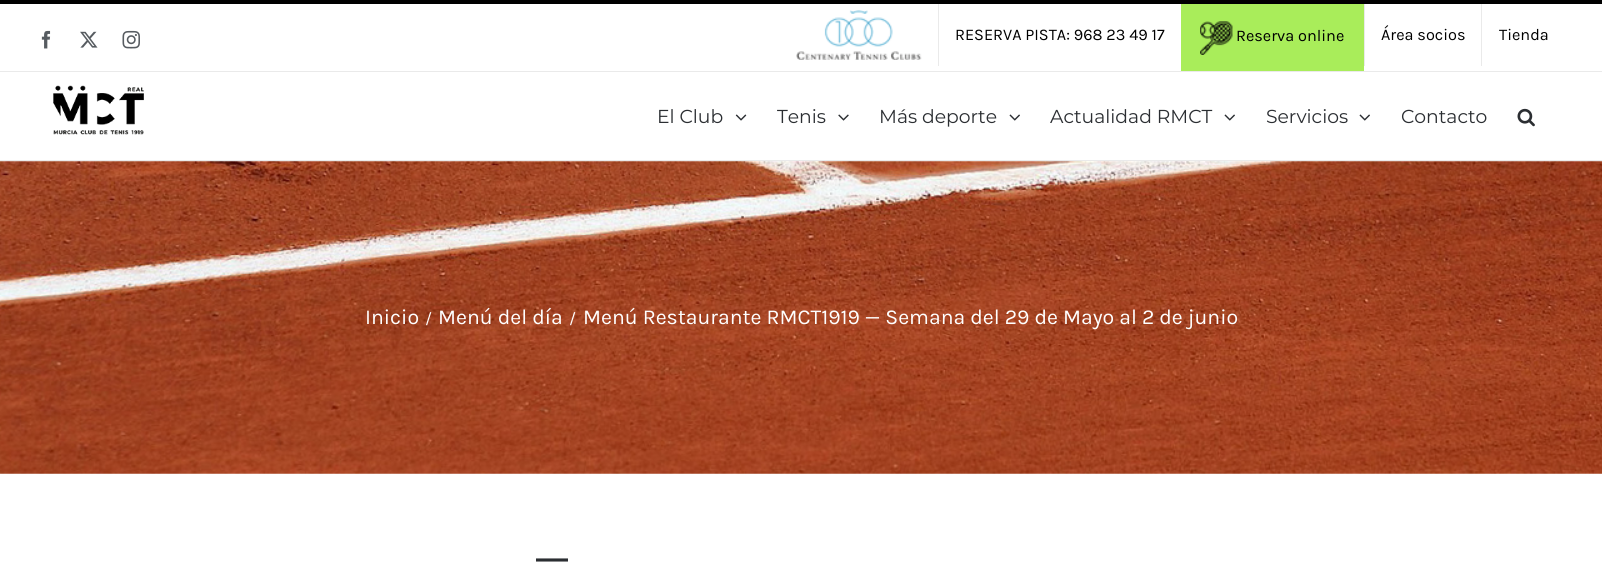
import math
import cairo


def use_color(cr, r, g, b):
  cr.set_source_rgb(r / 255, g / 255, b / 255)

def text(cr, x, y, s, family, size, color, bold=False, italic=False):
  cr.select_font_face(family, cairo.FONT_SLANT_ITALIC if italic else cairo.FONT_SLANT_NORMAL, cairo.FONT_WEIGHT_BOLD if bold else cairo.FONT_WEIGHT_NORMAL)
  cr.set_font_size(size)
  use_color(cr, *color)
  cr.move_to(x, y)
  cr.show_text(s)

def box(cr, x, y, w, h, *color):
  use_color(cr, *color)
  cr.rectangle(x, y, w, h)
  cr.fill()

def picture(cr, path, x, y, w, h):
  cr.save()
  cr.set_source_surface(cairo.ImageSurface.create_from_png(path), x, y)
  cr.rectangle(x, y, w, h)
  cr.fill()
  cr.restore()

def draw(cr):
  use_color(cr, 255, 255, 255)
  cr.paint()
  box(cr, 0, 0, 1602, 4, 0, 0, 0)
  box(cr, 0, 71, 1602, 1, 234, 234, 234)
  picture(cr, "img_01.png", 41, 30, 10, 19)
  picture(cr, "img_02.png", 80, 31, 18, 17)
  picture(cr, "img_03.png", 122, 30, 18, 19)
  picture(cr, "img_04.png", 796, 10, 126, 50)
  box(cr, 938, 4, 1, 62, 234, 234, 234)
  box(cr, 1181, 4, 183, 67, 169, 237, 90)
  picture(cr, "img_05.png", 1200, 21, 33, 34)
  box(cr, 1364, 4, 1, 62, 234, 234, 234)
  box(cr, 1481, 4, 1, 62, 234, 234, 234)
  box(cr, 0, 160, 1602, 1, 234, 234, 234)
  picture(cr, "img_06.png", 53, 85, 91, 50)
  picture(cr, "img_07.png", 735, 114, 12, 7)
  picture(cr, "img_08.png", 838, 114, 11, 7)
  picture(cr, "img_09.png", 1009, 114, 11, 7)
  picture(cr, "img_09.png", 1224, 114, 11, 7)
  picture(cr, "img_09.png", 1359, 114, 11, 7)
  picture(cr, "img_10.png", 1517, 108, 18, 19)
  picture(cr, "img_11.png", 0, 161, 1602, 313)
  text(cr, 955, 40, "RESERVA PISTA: 968 23 49 17", "Karla", 16.25, (0, 0, 0))
  text(cr, 1236, 41, "Reserva online", "Karla", 16.25, (0, 0, 0))
  text(cr, 1381, 40, "Área socios", "Karla", 16.25, (0, 0, 0))
  text(cr, 1499, 40, "Tienda", "Karla", 16.25, (0, 0, 0))
  text(cr, 657, 123, "El Club", "Montserrat", 18.75, (43, 46, 50))
  text(cr, 777, 123, "Tenis", "Montserrat", 18.75, (43, 46, 50))
  text(cr, 879, 123, "Más deporte", "Montserrat", 18.75, (43, 46, 50))
  text(cr, 1050, 123, "Actualidad RMCT", "Montserrat", 18.75, (43, 46, 50))
  text(cr, 1266, 123, "Servicios", "Montserrat", 18.75, (43, 46, 50))
  text(cr, 1401, 123, "Contacto", "Montserrat", 18.75, (43, 46, 50))
  text(cr, 365, 324, "Inicio", "Karla", 21.25, (255, 255, 255))
  text(cr, 425, 324, "/", "Karla", 16.25, (255, 255, 255))
  text(cr, 438, 324, "Menú del día", "Karla", 21.25, (255, 255, 255))
  text(cr, 569, 324, "/", "Karla", 16.25, (255, 255, 255))
  text(cr, 583, 324, "Menú Restaurante RMCT1919 — Semana del 29 de Mayo al 2 de junio", "Karla", 21.25, (255, 255, 255))
  text(cr, 536, 569, "—", "Montserrat", 32, (43, 46, 50), bold=True)


surface = cairo.ImageSurface(cairo.FORMAT_RGB24, 1602, 562)
cr = cairo.Context(surface)
options = cairo.FontOptions()
options.set_hint_metrics(cairo.HINT_METRICS_OFF)
options.set_hint_style(cairo.HINT_STYLE_NONE)
cr.set_font_options(options)
cr.set_miter_limit(4)
draw(cr)
surface.write_to_png("out.png")
